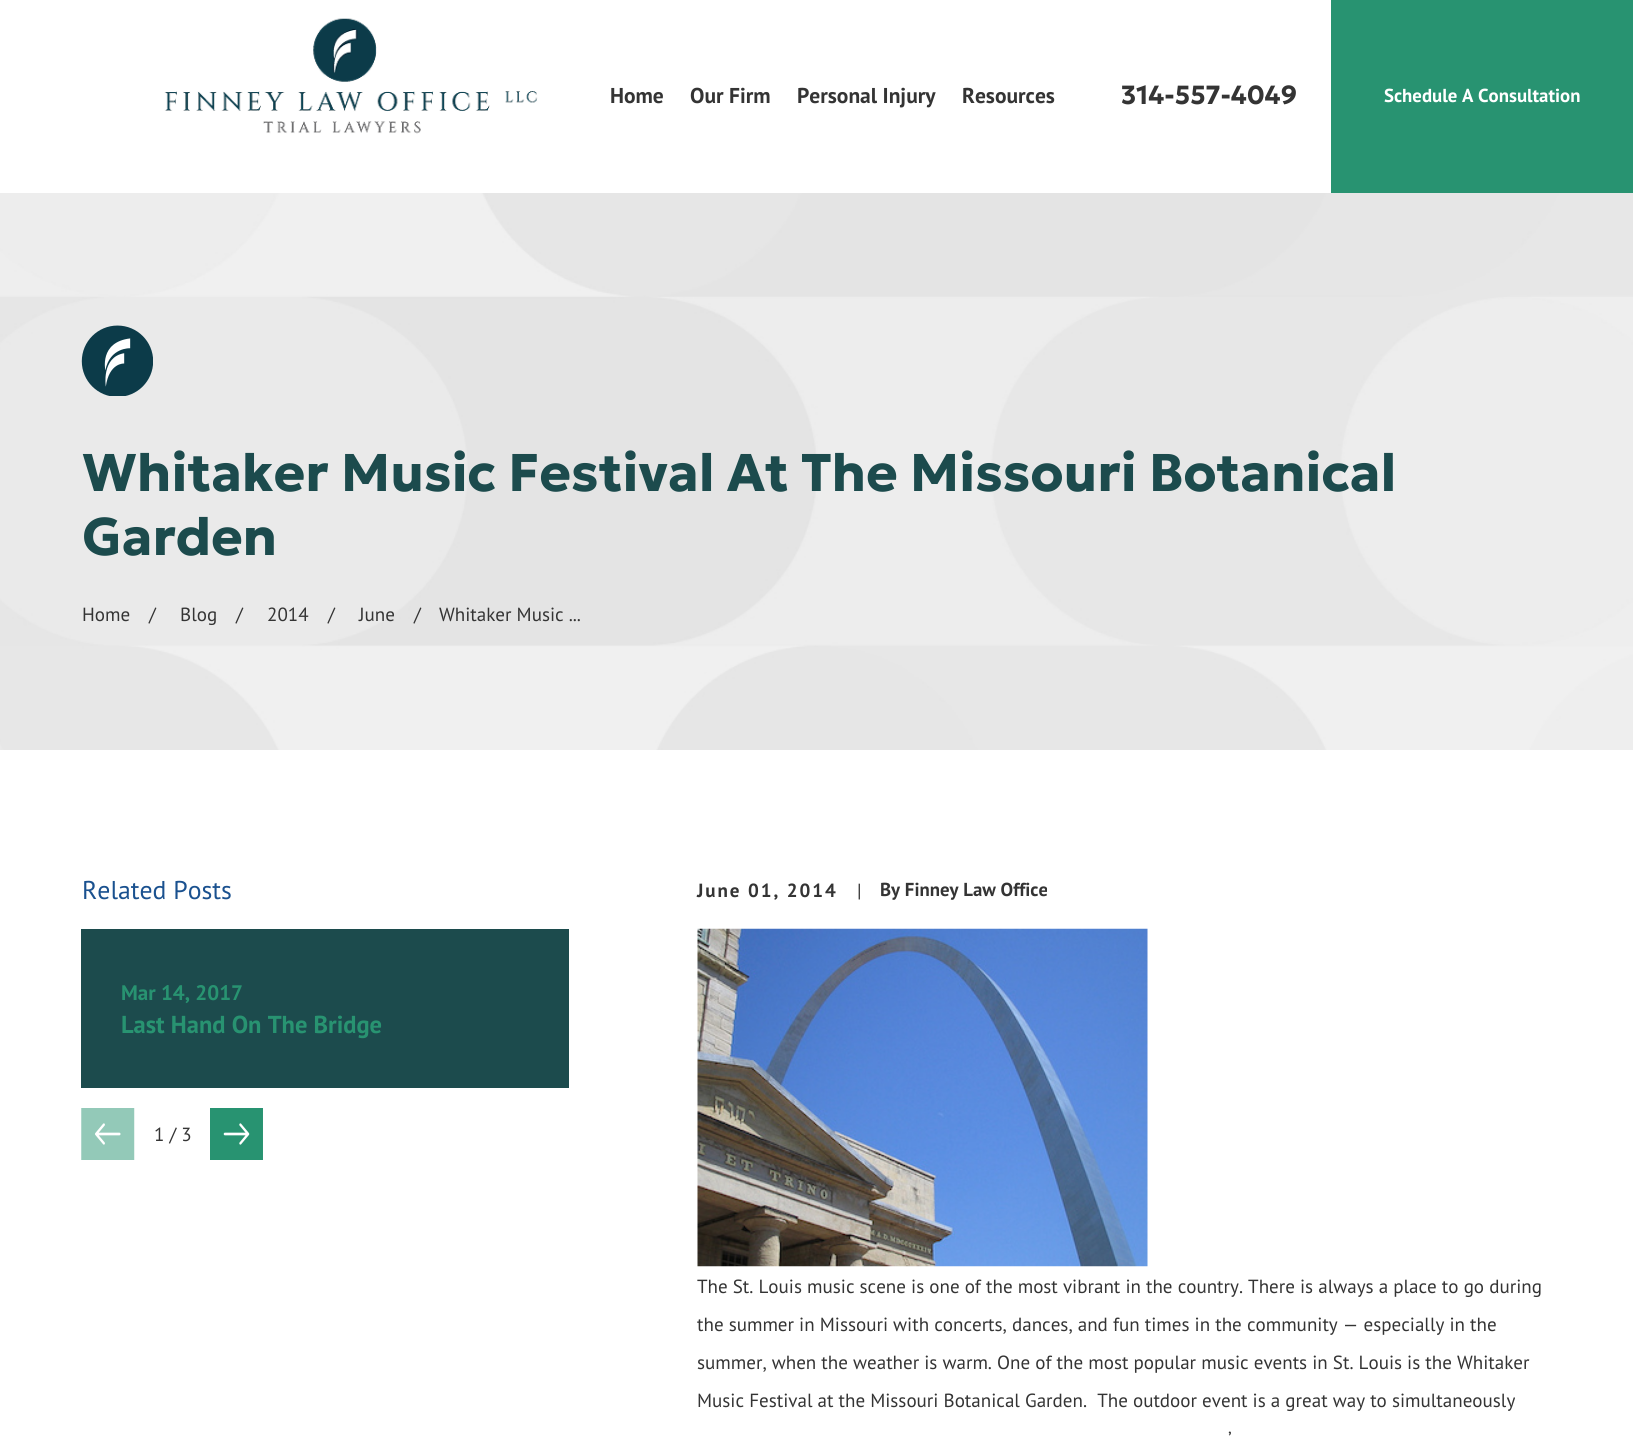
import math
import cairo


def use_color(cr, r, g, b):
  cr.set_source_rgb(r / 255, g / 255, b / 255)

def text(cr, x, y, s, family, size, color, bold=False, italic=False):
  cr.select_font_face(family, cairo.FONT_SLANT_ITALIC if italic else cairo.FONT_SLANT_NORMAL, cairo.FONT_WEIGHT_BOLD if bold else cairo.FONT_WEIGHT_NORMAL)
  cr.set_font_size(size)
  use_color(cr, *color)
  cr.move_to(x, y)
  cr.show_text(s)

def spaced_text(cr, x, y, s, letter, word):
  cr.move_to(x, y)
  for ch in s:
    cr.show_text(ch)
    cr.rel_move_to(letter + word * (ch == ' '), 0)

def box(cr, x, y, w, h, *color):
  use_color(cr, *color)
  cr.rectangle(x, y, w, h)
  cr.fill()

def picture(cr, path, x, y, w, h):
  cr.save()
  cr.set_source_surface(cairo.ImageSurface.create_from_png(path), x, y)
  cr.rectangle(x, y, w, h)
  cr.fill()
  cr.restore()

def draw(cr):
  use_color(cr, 255, 255, 255)
  cr.paint()
  picture(cr, "img_01.png", 164, 18, 374, 116)
  box(cr, 1331, 0, 302, 193, 40, 147, 113)
  picture(cr, "img_02.png", 0, 193, 1633, 557)
  picture(cr, "img_03.png", 81, 325, 72, 71)
  box(cr, 81, 929, 488, 159, 28, 75, 77)
  picture(cr, "img_04.png", 81, 1108, 54, 52)
  picture(cr, "img_05.png", 210, 1108, 53, 52)
  picture(cr, "img_06.png", 697, 928, 451, 339)
  text(cr, 610, 103, "Home", "PT Sans", 21.5, (52, 52, 52), bold=True)
  text(cr, 690, 103, "Our Firm", "PT Sans", 21.5, (52, 52, 52), bold=True)
  text(cr, 797, 103, "Personal Injury", "PT Sans", 21.5, (52, 52, 52), bold=True)
  text(cr, 962, 103, "Resources", "PT Sans", 21.5, (52, 52, 52), bold=True)
  text(cr, 1121, 104, "314-557-4049", "Geologica", 26.25, (52, 52, 52), bold=True)
  text(cr, 1384, 102, "Schedule A Consultation", "PT Sans", 18.8, (255, 255, 255), bold=True)
  text(cr, 82, 491, "Whitaker Music Festival At The Missouri Botanical", "Geologica", 52.9, (28, 75, 77), bold=True)
  text(cr, 82, 555, "Garden", "Geologica", 52.9, (28, 75, 77), bold=True)
  text(cr, 82, 621, "Home", "PT Sans", 19.05, (52, 52, 52))
  text(cr, 149, 621, "/", "PT Sans", 19.05, (52, 52, 52))
  text(cr, 180, 621, "Blog", "PT Sans", 19.05, (52, 52, 52))
  text(cr, 236, 621, "/", "PT Sans", 19.05, (52, 52, 52))
  text(cr, 267, 621, "2014", "PT Sans", 19.05, (52, 52, 52))
  text(cr, 328, 621, "/", "PT Sans", 19.05, (52, 52, 52))
  text(cr, 359, 621, "June", "PT Sans", 19.05, (52, 52, 52))
  text(cr, 414, 621, "/", "PT Sans", 19.05, (52, 52, 52))
  text(cr, 439, 621, "Whitaker Music ...", "PT Sans", 19.05, (52, 52, 52))
  text(cr, 82, 899, "Related Posts", "PT Sans", 25.75, (26, 81, 143))
  text(cr, 121, 1000, "Mar 14, 2017", "PT Sans", 21, (40, 147, 113), bold=True)
  text(cr, 121, 1033, "Last Hand On The Bridge", "PT Sans", 24.5, (40, 147, 113), bold=True)
  text(cr, 154, 1141, "1 / 3", "PT Sans", 19.05, (52, 52, 52))
  cr.select_font_face("PT Sans", cairo.FONT_SLANT_NORMAL, cairo.FONT_WEIGHT_BOLD)
  spaced_text(cr, 697, 897, "June 01, 2014", 1.9, 0)
  text(cr, 857, 897, "|", "PT Sans", 19.05, (52, 52, 52))
  text(cr, 880, 896, "By Finney Law Office", "PT Sans", 18.8, (52, 52, 52), bold=True)
  text(cr, 697, 1293, "The St. Louis music scene is one of the most vibrant in the country. There is always a place to go during", "PT Sans", 19.05, (52, 52, 52))
  text(cr, 697, 1331, "the summer in Missouri with concerts, dances, and fun times in the community — especially in the", "PT Sans", 19.05, (52, 52, 52))
  text(cr, 697, 1369, "summer, when the weather is warm. One of the most popular music events in St. Louis is the Whitaker", "PT Sans", 19.05, (52, 52, 52))
  text(cr, 697, 1407, "Music Festival at the Missouri Botanical Garden.  The outdoor event is a great way to simultaneously", "PT Sans", 19.05, (52, 52, 52))
  text(cr, 1228, 1445, "’", "PT Sans", 19.05, (52, 52, 52))


surface = cairo.ImageSurface(cairo.FORMAT_RGB24, 1633, 1437)
cr = cairo.Context(surface)
options = cairo.FontOptions()
options.set_hint_metrics(cairo.HINT_METRICS_OFF)
options.set_hint_style(cairo.HINT_STYLE_NONE)
cr.set_font_options(options)
cr.set_miter_limit(4)
draw(cr)
surface.write_to_png("out.png")
